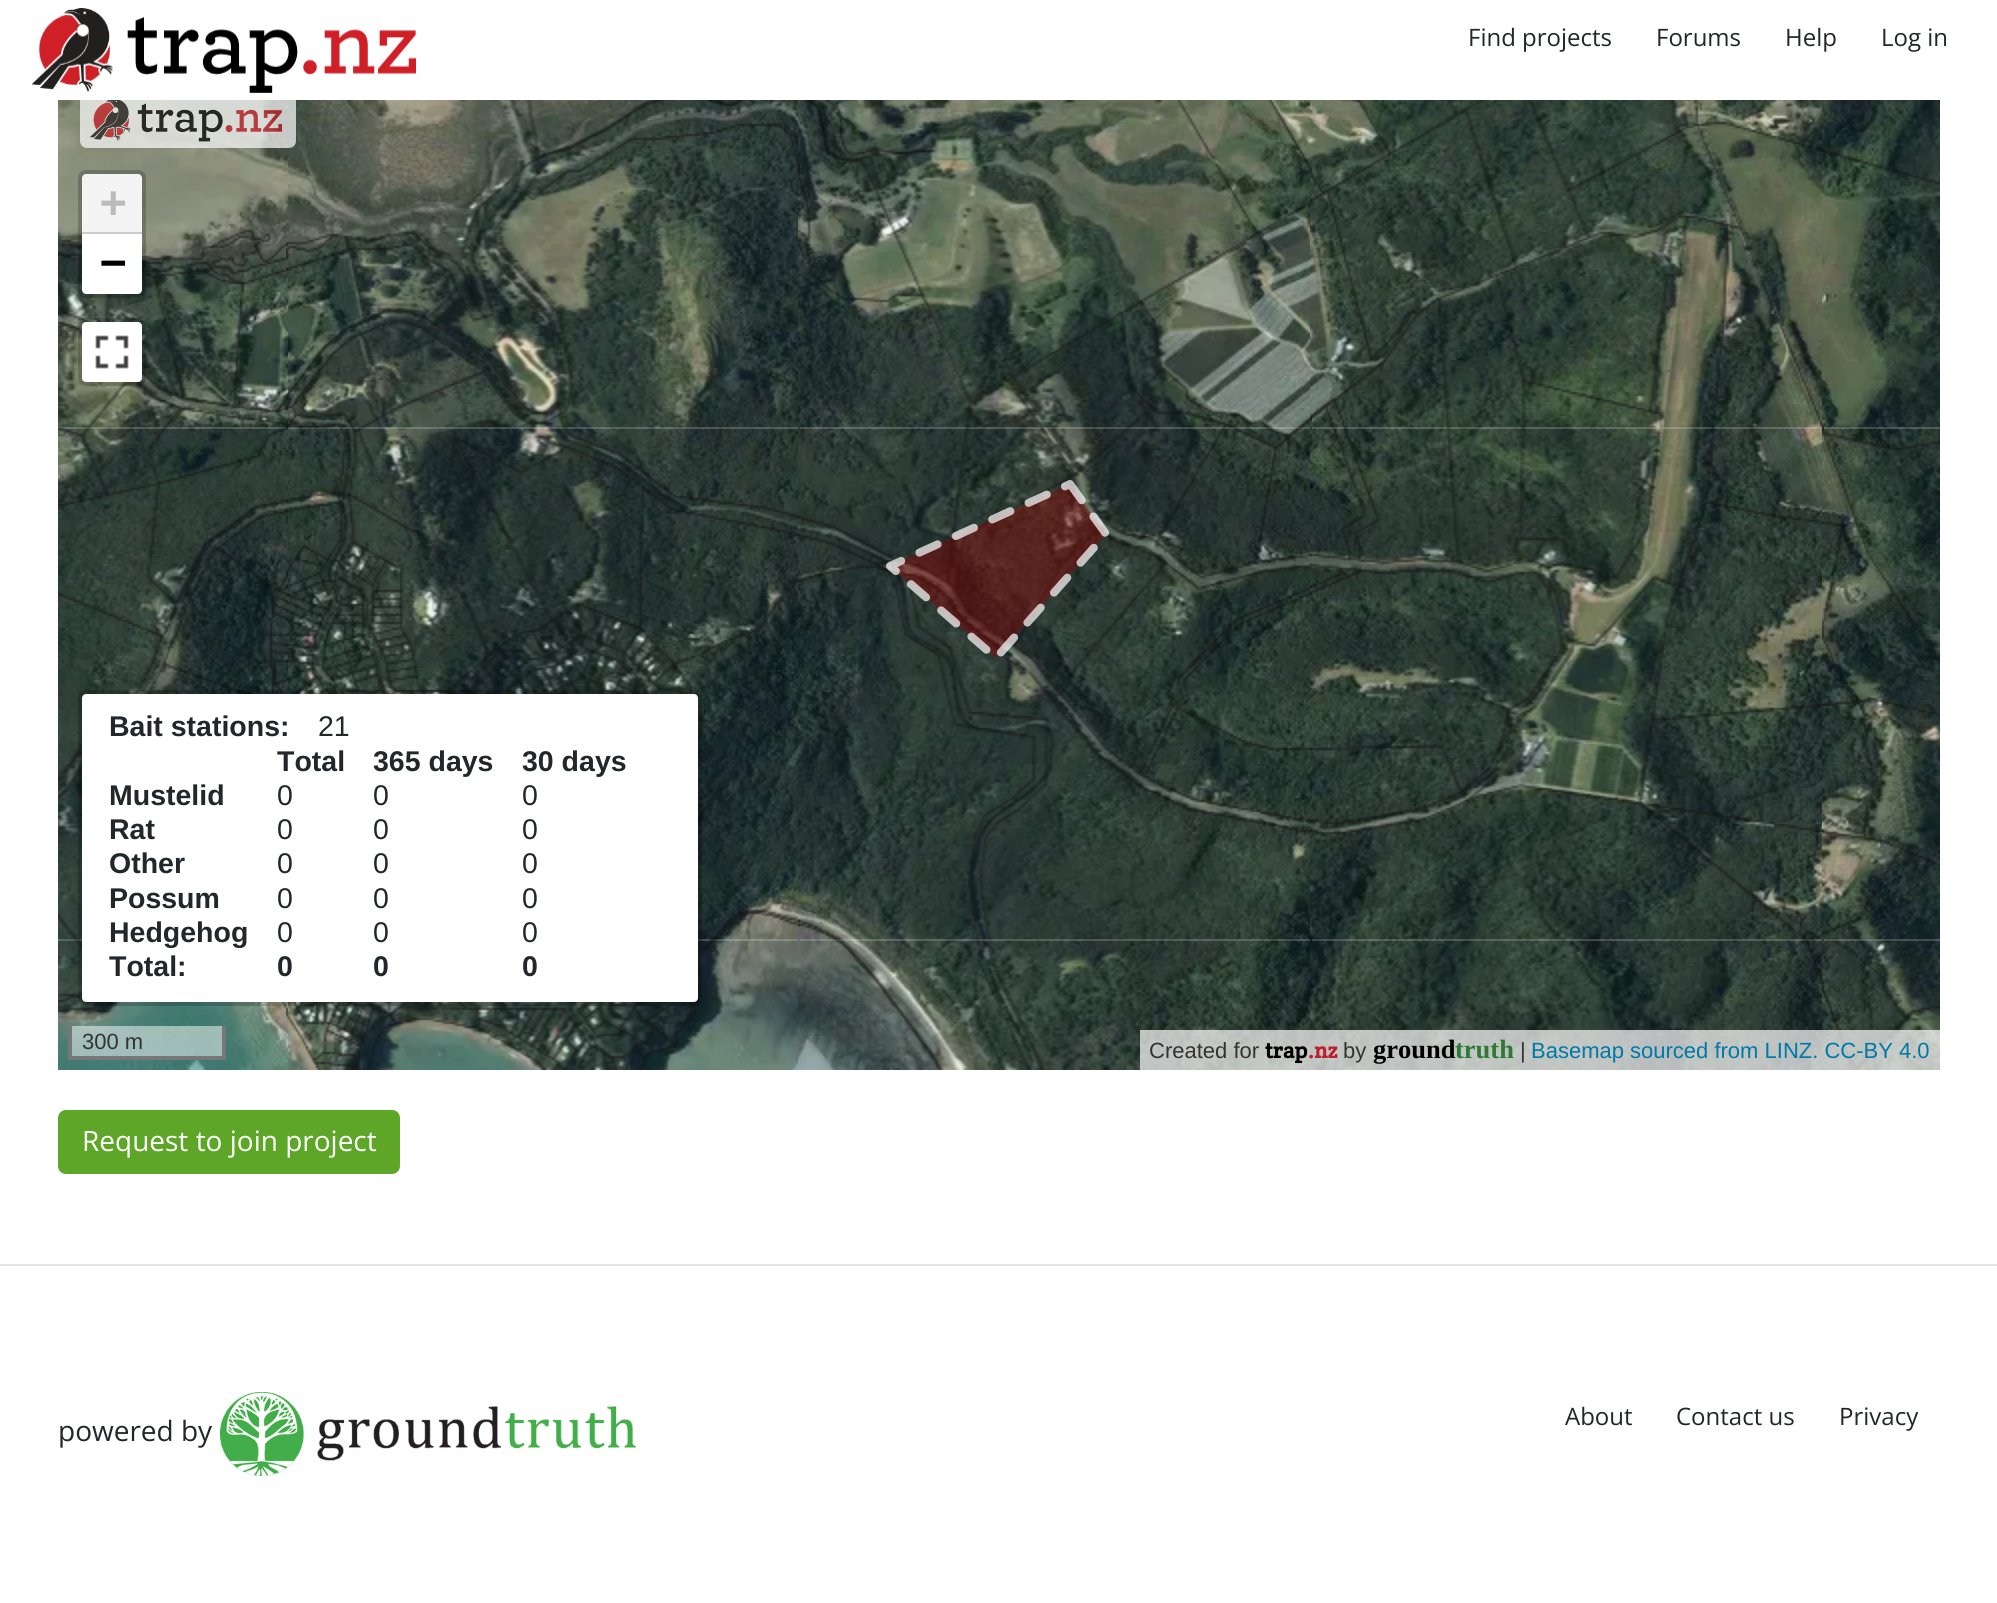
import math
import cairo


def use_color(cr, r, g, b):
  cr.set_source_rgb(r / 255, g / 255, b / 255)

def text(cr, x, y, s, family, size, color, bold=False, italic=False):
  cr.select_font_face(family, cairo.FONT_SLANT_ITALIC if italic else cairo.FONT_SLANT_NORMAL, cairo.FONT_WEIGHT_BOLD if bold else cairo.FONT_WEIGHT_NORMAL)
  cr.set_font_size(size)
  use_color(cr, *color)
  cr.move_to(x, y)
  cr.show_text(s)

def box(cr, x, y, w, h, *color):
  use_color(cr, *color)
  cr.rectangle(x, y, w, h)
  cr.fill()

def round_rect(cr, x, y, w, h, r):
  cr.new_sub_path()
  for i, (u, v) in enumerate([(x + w - r, y + h - r), (x + r, y + h - r), (x + r, y + r), (x + w - r, y + r)]):
    cr.arc(u, v, r, i * math.pi / 2, (i + 1) * math.pi / 2)
  cr.close_path()

def picture(cr, path, x, y, w, h):
  cr.save()
  cr.set_source_surface(cairo.ImageSurface.create_from_png(path), x, y)
  cr.rectangle(x, y, w, h)
  cr.fill()
  cr.restore()

def draw(cr):
  use_color(cr, 255, 255, 255)
  cr.paint()
  picture(cr, "img_01.png", 31, 7, 385, 86)
  picture(cr, "img_03.png", 286, 100, 514, 329)
  picture(cr, "img_04.png", 798, 100, 514, 329)
  picture(cr, "img_08.png", 286, 427, 514, 514)
  picture(cr, "img_02.png", 58, 100, 230, 329)
  picture(cr, "img_09.png", 798, 427, 514, 514)
  picture(cr, "img_05.png", 1310, 100, 514, 329)
  picture(cr, "img_10.png", 1310, 427, 514, 514)
  picture(cr, "img_06.png", 1822, 100, 118, 329)
  picture(cr, "img_07.png", 58, 427, 230, 514)
  picture(cr, "img_13.png", 288, 939, 512, 131)
  picture(cr, "img_14.png", 798, 939, 514, 131)
  picture(cr, "img_15.png", 1310, 939, 514, 131)
  picture(cr, "img_11.png", 1822, 427, 118, 514)
  picture(cr, "img_12.png", 58, 939, 230, 131)
  picture(cr, "img_16.png", 1822, 939, 118, 131)
  picture(cr, "img_17.png", 286, 100, 514, 329)
  picture(cr, "img_18.png", 798, 100, 514, 329)
  picture(cr, "img_23.png", 286, 427, 514, 514)
  picture(cr, "img_24.png", 798, 427, 514, 514)
  picture(cr, "img_19.png", 1310, 100, 514, 329)
  picture(cr, "img_20.png", 1822, 149, 118, 36)
  picture(cr, "img_21.png", 58, 229, 230, 200)
  picture(cr, "img_22.png", 58, 427, 230, 514)
  picture(cr, "img_25.png", 1310, 427, 514, 514)
  picture(cr, "img_26.png", 1822, 429, 118, 506)
  picture(cr, "img_28.png", 286, 939, 430, 131)
  picture(cr, "img_27.png", 58, 939, 230, 75)
  picture(cr, "img_29.png", 835, 939, 210, 131)
  picture(cr, "img_30.png", 1805, 939, 19, 48)
  picture(cr, "img_31.png", 1822, 985, 118, 85)
  cr.set_source_rgba(0.6, 0, 0, 0.4)
  cr.set_fill_rule(cairo.FILL_RULE_EVEN_ODD)
  cr.new_path()
  cr.move_to(1070, 484)
  cr.line_to(1106, 534)
  cr.line_to(996, 658)
  cr.line_to(890, 566)
  cr.close_path()
  cr.fill_preserve()
  cr.set_source_rgba(1, 1, 1, 0.7)
  cr.set_line_width(8)
  cr.set_line_cap(cairo.LINE_CAP_ROUND)
  cr.set_line_join(cairo.LINE_JOIN_ROUND)
  cr.set_dash([20, 20])
  cr.stroke()
  picture(cr, "img_32.png", 80, 100, 216, 48)
  round_rect(cr, 80, 172, 64, 124, 6)
  cr.set_source_rgba(0, 0, 0, 0.2)
  cr.set_line_width(4)
  cr.set_line_cap(cairo.LINE_CAP_BUTT)
  cr.set_line_join(cairo.LINE_JOIN_MITER)
  cr.set_dash([])
  cr.stroke()
  use_color(cr, 244, 244, 244)
  cr.new_path()
  cr.move_to(86, 174)
  cr.line_to(138, 174)
  cr.curve_to(140, 174, 142, 176, 142, 178)
  cr.line_to(142, 234)
  cr.line_to(82, 234)
  cr.line_to(82, 178)
  cr.curve_to(82, 176, 84, 174, 86, 174)
  cr.close_path()
  cr.fill()
  box(cr, 82, 232, 60, 2, 204, 204, 204)
  use_color(cr, 255, 255, 255)
  cr.new_path()
  cr.move_to(82, 234)
  cr.line_to(142, 234)
  cr.line_to(142, 290)
  cr.curve_to(142, 292, 140, 294, 138, 294)
  cr.line_to(86, 294)
  cr.curve_to(84, 294, 82, 292, 82, 290)
  cr.close_path()
  cr.fill()
  round_rect(cr, 80, 320, 64, 64, 6)
  cr.set_source_rgba(0, 0, 0, 0.2)
  cr.stroke()
  use_color(cr, 255, 255, 255)
  round_rect(cr, 82, 322, 60, 60, 4)
  cr.fill()
  picture(cr, "img_33.png", 95, 335, 34, 34)
  round_rect(cr, 82, 694, 616, 308, 4)
  cr.fill()
  round_rect(cr, 80, 692, 620, 312, 6)
  cr.set_source_rgba(0, 0, 0, 0.2)
  cr.stroke()
  cr.set_source_rgba(1, 1, 1, 0.5)
  cr.rectangle(72, 1026, 150, 30)
  cr.fill()
  box(cr, 222, 1026, 4, 34, 119, 119, 119)
  box(cr, 68, 1056, 158, 4, 119, 119, 119)
  box(cr, 68, 1026, 4, 34, 119, 119, 119)
  cr.set_source_rgba(1, 1, 1, 0.7)
  cr.rectangle(1140, 1030, 800, 40)
  cr.fill()
  use_color(cr, 93, 166, 40)
  round_rect(cr, 58, 1110, 342, 64, 8)
  cr.fill()
  box(cr, 0, 1264, 1997, 2, 229, 229, 229)
  picture(cr, "img_34.png", 220, 1392, 416, 84)
  text(cr, 1468, 46, "Find projects", "Open Sans", 24, (35, 39, 43))
  text(cr, 1656, 46, "Forums", "Open Sans", 24, (35, 39, 43))
  text(cr, 1785, 46, "Help", "Open Sans", 24, (35, 39, 43))
  text(cr, 1881, 46, "Log in", "Open Sans", 24, (35, 39, 43))
  text(cr, 100, 217, "+", "DejaVu Sans Mono", 44, (187, 187, 187), bold=True)
  text(cr, 100, 277, "−", "DejaVu Sans Mono", 44, (0, 0, 0), bold=True)
  text(cr, 109, 736, "Bait stations:", "Liberation Sans", 28.5, (35, 39, 43), bold=True)
  text(cr, 318, 736, "21", "Liberation Sans", 28.5, (35, 39, 43))
  text(cr, 277, 771, "Total", "Liberation Sans", 28.5, (35, 39, 43), bold=True)
  text(cr, 373, 771, "365 days", "Liberation Sans", 28.5, (35, 39, 43), bold=True)
  text(cr, 522, 771, "30 days", "Liberation Sans", 28.5, (35, 39, 43), bold=True)
  text(cr, 109, 805, "Mustelid", "Liberation Sans", 28.5, (35, 39, 43), bold=True)
  text(cr, 277, 805, "0", "Liberation Sans", 28.5, (35, 39, 43))
  text(cr, 373, 805, "0", "Liberation Sans", 28.5, (35, 39, 43))
  text(cr, 522, 805, "0", "Liberation Sans", 28.5, (35, 39, 43))
  text(cr, 109, 839, "Rat", "Liberation Sans", 28.5, (35, 39, 43), bold=True)
  text(cr, 277, 839, "0", "Liberation Sans", 28.5, (35, 39, 43))
  text(cr, 373, 839, "0", "Liberation Sans", 28.5, (35, 39, 43))
  text(cr, 522, 839, "0", "Liberation Sans", 28.5, (35, 39, 43))
  text(cr, 109, 873, "Other", "Liberation Sans", 28.5, (35, 39, 43), bold=True)
  text(cr, 277, 873, "0", "Liberation Sans", 28.5, (35, 39, 43))
  text(cr, 373, 873, "0", "Liberation Sans", 28.5, (35, 39, 43))
  text(cr, 522, 873, "0", "Liberation Sans", 28.5, (35, 39, 43))
  text(cr, 109, 908, "Possum", "Liberation Sans", 28.5, (35, 39, 43), bold=True)
  text(cr, 277, 908, "0", "Liberation Sans", 28.5, (35, 39, 43))
  text(cr, 373, 908, "0", "Liberation Sans", 28.5, (35, 39, 43))
  text(cr, 522, 908, "0", "Liberation Sans", 28.5, (35, 39, 43))
  text(cr, 109, 942, "Hedgehog", "Liberation Sans", 28.5, (35, 39, 43), bold=True)
  text(cr, 277, 942, "0", "Liberation Sans", 28.5, (35, 39, 43))
  text(cr, 373, 942, "0", "Liberation Sans", 28.5, (35, 39, 43))
  text(cr, 522, 942, "0", "Liberation Sans", 28.5, (35, 39, 43))
  text(cr, 109, 976, "Total:", "Liberation Sans", 28.5, (35, 39, 43), bold=True)
  text(cr, 277, 976, "0", "Liberation Sans", 28.5, (35, 39, 43), bold=True)
  text(cr, 373, 976, "0", "Liberation Sans", 28.5, (35, 39, 43), bold=True)
  text(cr, 522, 976, "0", "Liberation Sans", 28.5, (35, 39, 43), bold=True)
  text(cr, 82, 1049, "300 m", "Liberation Sans", 22, (51, 51, 51))
  text(cr, 1149, 1058, "Created for", "Liberation Sans", 22, (51, 51, 51))
  text(cr, 1265, 1058, "trap", "Crete Round", 22, (0, 0, 0), bold=True)
  text(cr, 1308, 1058, ".nz", "Crete Round", 22, (189, 31, 45), bold=True)
  text(cr, 1343, 1058, "by", "Liberation Sans", 22, (51, 51, 51))
  text(cr, 1373, 1058, "ground", "Liberation Serif", 26.5, (0, 0, 0), bold=True)
  text(cr, 1455, 1058, "truth", "Liberation Serif", 26.5, (46, 122, 52), bold=True)
  text(cr, 1520, 1058, "|", "Liberation Sans", 22, (51, 51, 51))
  text(cr, 1531, 1058, "Basemap sourced from LINZ. CC-BY 4.0", "Liberation Sans", 22, (0, 120, 168))
  text(cr, 82, 1151, "Request to join project", "Open Sans", 28, (255, 255, 255))
  text(cr, 58, 1441, "powered by", "Open Sans", 28, (35, 39, 43))
  text(cr, 1565, 1425, "About", "Open Sans", 24, (35, 39, 43))
  text(cr, 1676, 1425, "Contact us", "Open Sans", 24, (35, 39, 43))
  text(cr, 1839, 1425, "Privacy", "Open Sans", 24, (35, 39, 43))


surface = cairo.ImageSurface(cairo.FORMAT_RGB24, 1997, 1603)
cr = cairo.Context(surface)
options = cairo.FontOptions()
options.set_hint_metrics(cairo.HINT_METRICS_OFF)
options.set_hint_style(cairo.HINT_STYLE_NONE)
cr.set_font_options(options)
cr.set_miter_limit(4)
draw(cr)
surface.write_to_png("out.png")
